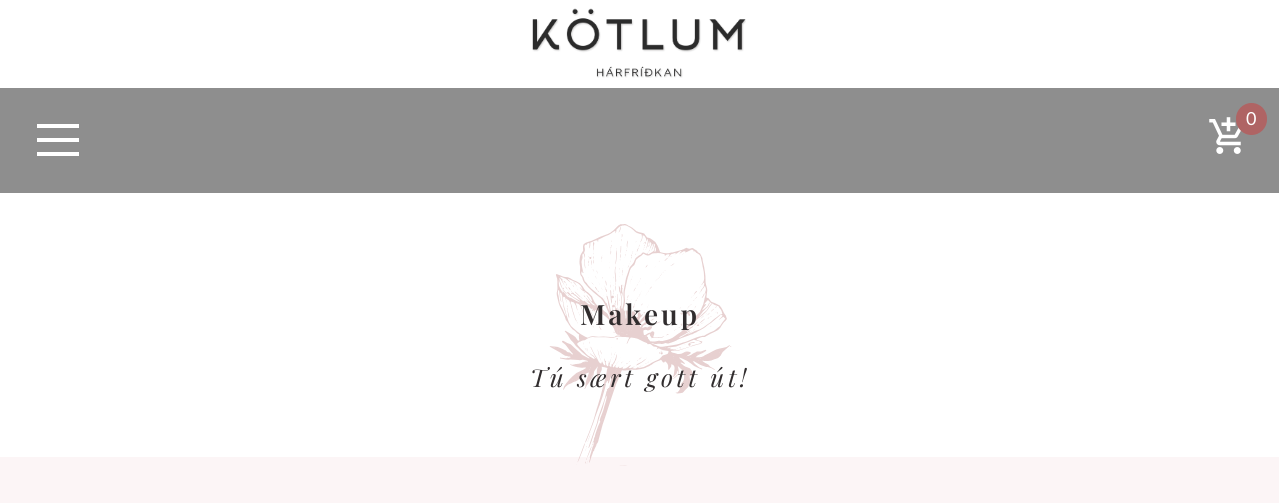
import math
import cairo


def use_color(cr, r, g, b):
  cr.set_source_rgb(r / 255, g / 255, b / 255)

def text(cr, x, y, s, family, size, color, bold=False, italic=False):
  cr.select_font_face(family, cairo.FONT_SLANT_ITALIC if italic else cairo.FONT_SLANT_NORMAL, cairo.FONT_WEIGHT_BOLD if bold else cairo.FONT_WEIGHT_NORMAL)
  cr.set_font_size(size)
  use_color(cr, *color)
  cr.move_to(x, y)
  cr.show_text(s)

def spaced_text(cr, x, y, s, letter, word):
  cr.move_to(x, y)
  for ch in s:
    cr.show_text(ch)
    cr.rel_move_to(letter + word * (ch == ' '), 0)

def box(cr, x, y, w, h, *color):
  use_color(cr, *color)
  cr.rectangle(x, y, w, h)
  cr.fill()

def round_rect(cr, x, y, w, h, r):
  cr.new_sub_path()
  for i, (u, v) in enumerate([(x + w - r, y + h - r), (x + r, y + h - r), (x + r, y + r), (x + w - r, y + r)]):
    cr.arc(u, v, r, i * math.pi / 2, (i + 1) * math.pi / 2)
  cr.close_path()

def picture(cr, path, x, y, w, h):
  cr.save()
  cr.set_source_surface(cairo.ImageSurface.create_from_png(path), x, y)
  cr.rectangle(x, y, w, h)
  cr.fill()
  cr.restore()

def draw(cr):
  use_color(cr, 255, 255, 255)
  cr.paint()
  picture(cr, "img_01.png", 532, 8, 214, 70)
  box(cr, 0, 88, 1279, 105, 142, 142, 142)
  picture(cr, "img_02.png", 1209, 117, 33, 37)
  use_color(cr, 175, 100, 100)
  round_rect(cr, 1236, 103, 31, 32, 15.5)
  cr.fill()
  box(cr, 37, 124, 42, 4, 255, 255, 255)
  box(cr, 37, 138, 42, 4, 255, 255, 255)
  box(cr, 37, 152, 42, 4, 255, 255, 255)
  box(cr, 0, 457, 1279, 46, 252, 245, 246)
  picture(cr, "img_03.png", 549, 224, 183, 242)
  text(cr, 1246, 125, "0", "Lato", 18, (255, 255, 255))
  cr.select_font_face("Playfair Display SemiBold")
  cr.set_font_size(28)
  use_color(cr, 49, 45, 46)
  spaced_text(cr, 580, 325, "Makeup", 2.75, 0)
  cr.select_font_face("Playfair Display", cairo.FONT_SLANT_ITALIC)
  cr.set_font_size(24.5)
  spaced_text(cr, 530, 387, "Tú sært gott út!", 3.7, 0)


surface = cairo.ImageSurface(cairo.FORMAT_RGB24, 1279, 503)
cr = cairo.Context(surface)
options = cairo.FontOptions()
options.set_hint_metrics(cairo.HINT_METRICS_OFF)
options.set_hint_style(cairo.HINT_STYLE_NONE)
cr.set_font_options(options)
cr.set_miter_limit(4)
draw(cr)
surface.write_to_png("out.png")
